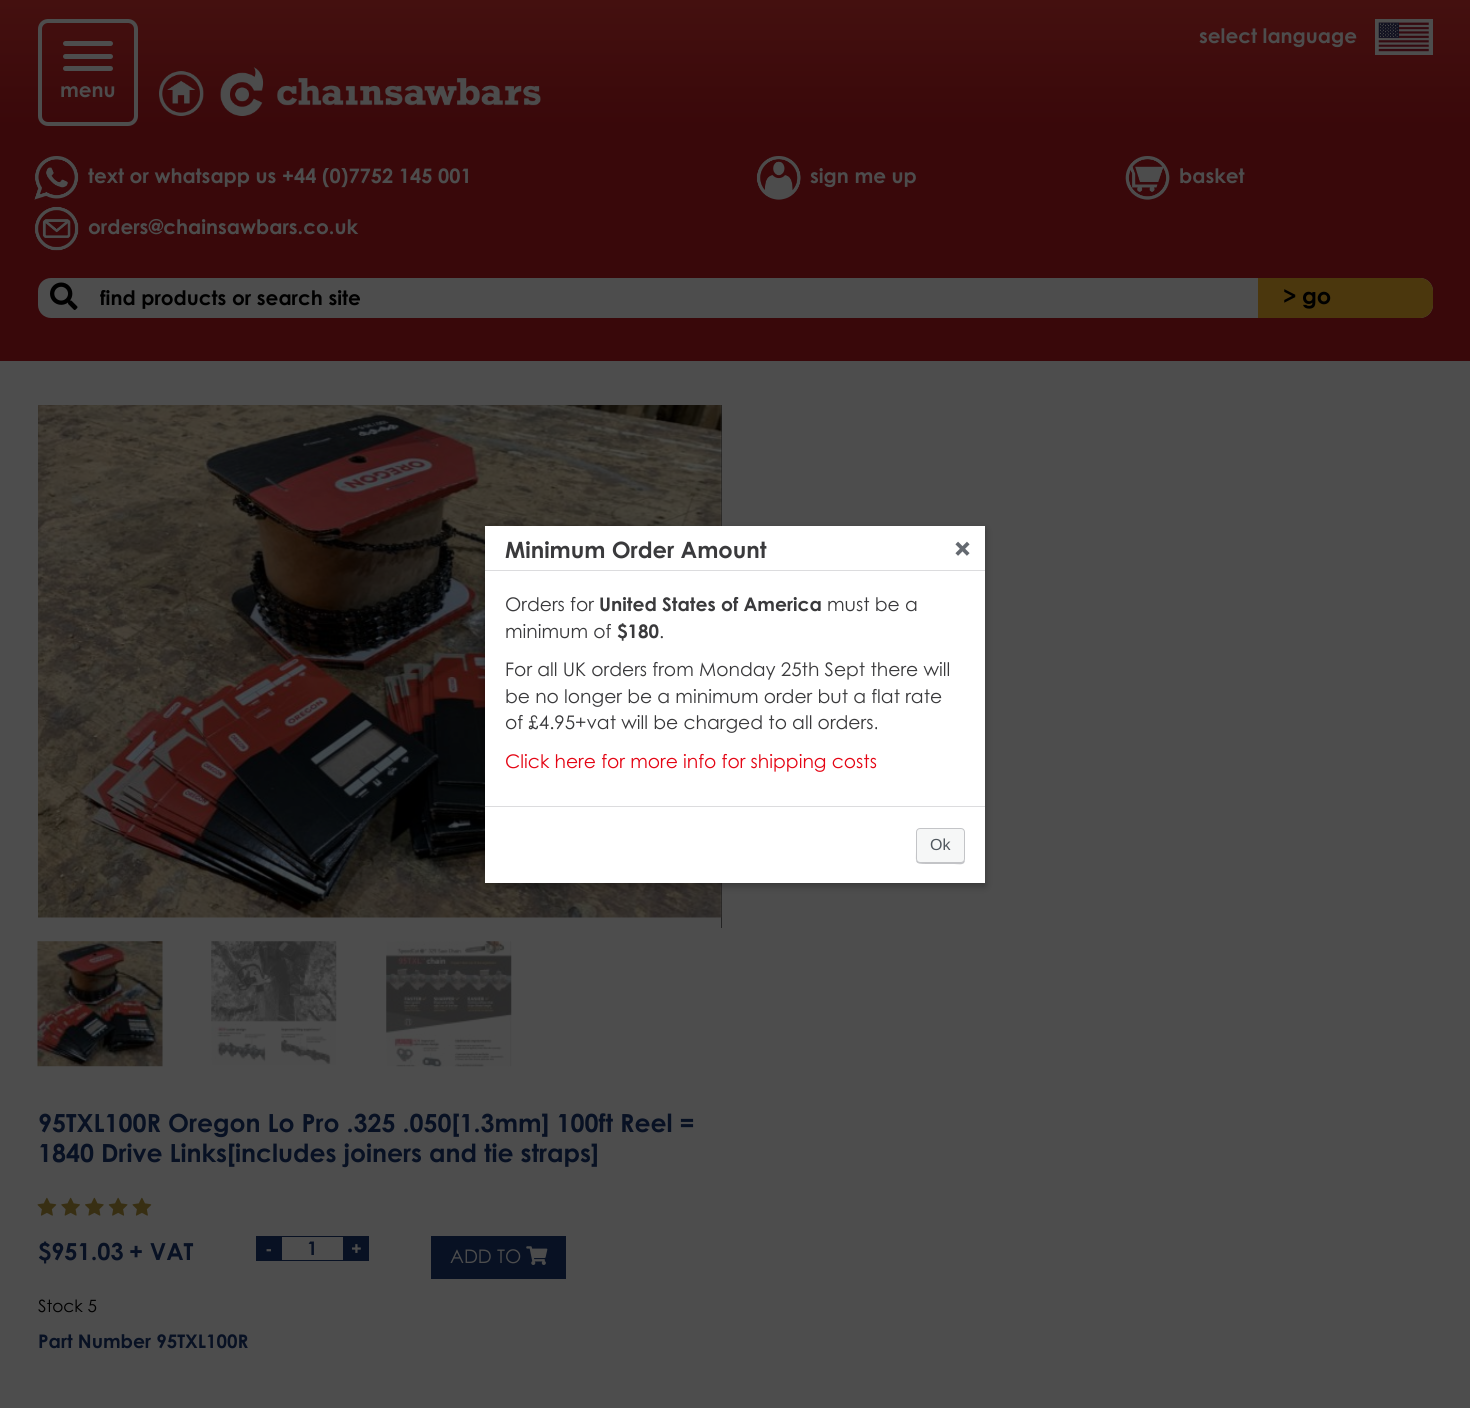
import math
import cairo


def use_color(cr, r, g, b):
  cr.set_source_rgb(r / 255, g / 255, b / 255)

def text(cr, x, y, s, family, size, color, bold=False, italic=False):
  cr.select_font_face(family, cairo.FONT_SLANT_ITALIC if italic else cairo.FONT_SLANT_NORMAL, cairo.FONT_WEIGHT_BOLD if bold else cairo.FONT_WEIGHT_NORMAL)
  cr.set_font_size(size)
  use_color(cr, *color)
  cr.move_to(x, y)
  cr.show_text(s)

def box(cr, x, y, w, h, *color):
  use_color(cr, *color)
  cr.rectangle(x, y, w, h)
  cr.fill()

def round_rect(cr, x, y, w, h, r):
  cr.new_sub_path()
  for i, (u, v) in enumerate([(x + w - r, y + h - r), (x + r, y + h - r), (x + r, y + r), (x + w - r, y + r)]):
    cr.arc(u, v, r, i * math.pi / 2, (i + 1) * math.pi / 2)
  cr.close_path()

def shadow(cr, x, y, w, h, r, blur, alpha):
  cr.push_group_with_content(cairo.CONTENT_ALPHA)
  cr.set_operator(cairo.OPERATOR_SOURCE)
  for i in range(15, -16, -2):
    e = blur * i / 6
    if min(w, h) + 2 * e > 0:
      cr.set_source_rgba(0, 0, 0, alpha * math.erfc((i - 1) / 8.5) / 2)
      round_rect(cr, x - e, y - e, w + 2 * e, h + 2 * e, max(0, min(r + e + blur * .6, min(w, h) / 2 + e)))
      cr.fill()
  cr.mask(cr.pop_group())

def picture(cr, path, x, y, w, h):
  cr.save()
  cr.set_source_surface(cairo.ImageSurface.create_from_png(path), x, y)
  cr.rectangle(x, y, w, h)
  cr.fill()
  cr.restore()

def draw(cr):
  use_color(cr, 77, 77, 77)
  cr.paint()
  gradient = cairo.LinearGradient(735, 0, 735, 361)
  gradient.add_color_stop_rgba(0, 0.267, 0.063, 0.059, 1)
  gradient.add_color_stop_rgba(0.35, 0.224, 0.031, 0.039, 1)
  gradient.add_color_stop_rgba(1, 0.224, 0.031, 0.039, 1)
  cr.set_source(gradient)
  cr.rectangle(0, 0, 1470, 361)
  cr.fill()
  box(cr, 1375, 19, 58, 36, 77, 77, 77)
  picture(cr, "img_01.png", 1378, 22, 51, 30)
  round_rect(cr, 40, 21, 96, 103, 8)
  cr.set_line_width(4)
  cr.stroke()
  round_rect(cr, 63, 41, 50, 5, 2.5)
  cr.fill()
  round_rect(cr, 63, 54, 50, 5, 2.5)
  cr.fill()
  round_rect(cr, 63, 66, 50, 5, 2.5)
  cr.fill()
  picture(cr, "img_02.png", 159, 67, 382, 49)
  picture(cr, "img_03.png", 34, 156, 45, 44)
  picture(cr, "img_04.png", 34, 206, 45, 45)
  picture(cr, "img_05.png", 756, 156, 45, 44)
  picture(cr, "img_06.png", 1125, 156, 45, 44)
  round_rect(cr, 38, 278, 1395, 40, 13)
  cr.fill()
  picture(cr, "img_07.png", 50, 282, 28, 28)
  use_color(cr, 75, 55, 13)
  cr.new_path()
  cr.move_to(1258, 278)
  cr.line_to(1420, 278)
  cr.curve_to(1427, 278, 1433, 284, 1433, 291)
  cr.line_to(1433, 305)
  cr.curve_to(1433, 312, 1427, 318, 1420, 318)
  cr.line_to(1258, 318)
  cr.close_path()
  cr.fill()
  picture(cr, "img_09.png", 721, 405, 1, 523)
  picture(cr, "img_08.png", 38, 405, 684, 513)
  picture(cr, "img_10.png", 37, 941, 126, 126)
  picture(cr, "img_11.png", 211, 941, 126, 124)
  picture(cr, "img_12.png", 386, 941, 126, 126)
  picture(cr, "img_13.png", 37, 1197, 20, 19)
  picture(cr, "img_14.png", 61, 1197, 19, 19)
  picture(cr, "img_15.png", 85, 1197, 19, 19)
  picture(cr, "img_16.png", 108, 1197, 20, 19)
  picture(cr, "img_13.png", 132, 1197, 20, 19)
  box(cr, 256, 1236, 25, 25, 8, 17, 35)
  cr.rectangle(281.5, 1236.5, 62, 24)
  cr.set_line_width(1)
  cr.stroke()
  box(cr, 344, 1236, 25, 25, 8, 17, 35)
  box(cr, 431, 1236, 135, 43, 8, 17, 35)
  picture(cr, "img_17.png", 526, 1246, 22, 19)
  use_color(cr, 0, 0, 0)
  shadow(cr, 485, 530, 500, 356, 0, 4, 0.3)
  box(cr, 485, 526, 500, 357, 255, 255, 255)
  box(cr, 485, 570, 500, 1, 220, 220, 222)
  picture(cr, "img_18.png", 955, 541, 15, 15)
  box(cr, 485, 806, 500, 1, 220, 220, 222)
  use_color(cr, 195, 196, 199)
  cr.new_path()
  cr.move_to(916, 832)
  cr.line_to(916, 851)
  cr.curve_to(916, 863, 914, 864, 927, 864)
  cr.line_to(954, 864)
  cr.curve_to(960, 864, 965, 866, 965, 859)
  cr.curve_to(965, 861, 963, 862, 961, 862)
  cr.line_to(920, 862)
  cr.curve_to(918, 862, 916, 861, 916, 859)
  cr.close_path()
  cr.fill()
  use_color(cr, 246, 247, 247)
  round_rect(cr, 916.5, 828.5, 48, 34, 3.5)
  cr.fill_preserve()
  use_color(cr, 195, 196, 199)
  cr.stroke()
  text(cr, 1199, 43, "select language", "Century Gothic", 20, (77, 77, 77), bold=True)
  text(cr, 60, 97, "menu", "Century Gothic", 20, (77, 77, 77), bold=True)
  text(cr, 88, 183, "text or whatsapp us +44 (0)7752 145 001", "Century Gothic", 20, (77, 77, 77), bold=True)
  text(cr, 88, 234, "orders@chainsawbars.co.uk", "Century Gothic", 20, (77, 77, 77), bold=True)
  text(cr, 810, 183, "sign me up", "Century Gothic", 20, (77, 77, 77), bold=True)
  text(cr, 1179, 183, "basket", "Century Gothic", 20, (77, 77, 77), bold=True)
  text(cr, 100, 305, "find products or search site", "Century Gothic", 20, (0, 0, 0), bold=True)
  text(cr, 1283, 304, ">", "Century Gothic", 22.5, (0, 0, 0), bold=True)
  text(cr, 1302, 304, "go", "Century Gothic", 22.5, (0, 0, 0), bold=True)
  text(cr, 38, 1132, "95TXL100R Oregon Lo Pro .325 .050[1.3mm] 100ft Reel =", "Century Gothic", 25, (8, 17, 35), bold=True)
  text(cr, 38, 1162, "1840 Drive Links[includes joiners and tie straps]", "Century Gothic", 25, (8, 17, 35), bold=True)
  text(cr, 38, 1260, "$951.03", "Century Gothic", 23.5, (8, 17, 35), bold=True)
  text(cr, 129, 1260, "+ VAT", "Century Gothic", 23.5, (8, 17, 35), bold=True)
  text(cr, 265, 1255, "-", "Century Gothic", 18, (77, 77, 77), bold=True)
  text(cr, 307, 1255, "1", "Century Gothic", 18.75, (8, 17, 35), bold=True)
  text(cr, 351, 1255, "+", "Century Gothic", 18, (77, 77, 77), bold=True)
  text(cr, 450, 1263, "ADD TO", "Century Gothic", 18.75, (77, 77, 77))
  text(cr, 38, 1312, "Stock 5", "Century Gothic", 17, (0, 0, 0))
  text(cr, 38, 1348, "Part Number 95TXL100R", "Century Gothic", 18.75, (8, 17, 35), bold=True)
  text(cr, 505, 558, "Minimum Order Amount", "Century Gothic", 22.5, (58, 58, 60), bold=True)
  text(cr, 505, 611, "Orders for", "Century Gothic", 18.75, (58, 58, 60))
  text(cr, 599, 611, "United States of America", "Century Gothic", 18.75, (58, 58, 60), bold=True)
  text(cr, 827, 611, "must be a", "Century Gothic", 18.75, (58, 58, 60))
  text(cr, 505, 638, "minimum of", "Century Gothic", 18.75, (58, 58, 60))
  text(cr, 617, 638, "$180", "Century Gothic", 18.75, (58, 58, 60), bold=True)
  text(cr, 659, 638, ".", "Century Gothic", 18.75, (58, 58, 60))
  text(cr, 505, 676, "For all UK orders from Monday 25th Sept there will", "Century Gothic", 18.75, (58, 58, 60))
  text(cr, 505, 703, "be no longer be a minimum order but a flat rate", "Century Gothic", 18.75, (58, 58, 60))
  text(cr, 505, 729, "of £4.95+vat will be charged to all orders.", "Century Gothic", 18.75, (58, 58, 60))
  text(cr, 505, 768, "Click here for more info for shipping costs", "Century Gothic", 18.75, (228, 5, 20))
  text(cr, 930, 850, "Ok", "Liberation Sans", 16, (80, 87, 94))


surface = cairo.ImageSurface(cairo.FORMAT_RGB24, 1470, 1408)
cr = cairo.Context(surface)
options = cairo.FontOptions()
options.set_hint_metrics(cairo.HINT_METRICS_OFF)
options.set_hint_style(cairo.HINT_STYLE_NONE)
cr.set_font_options(options)
cr.set_miter_limit(4)
draw(cr)
surface.write_to_png("out.png")
